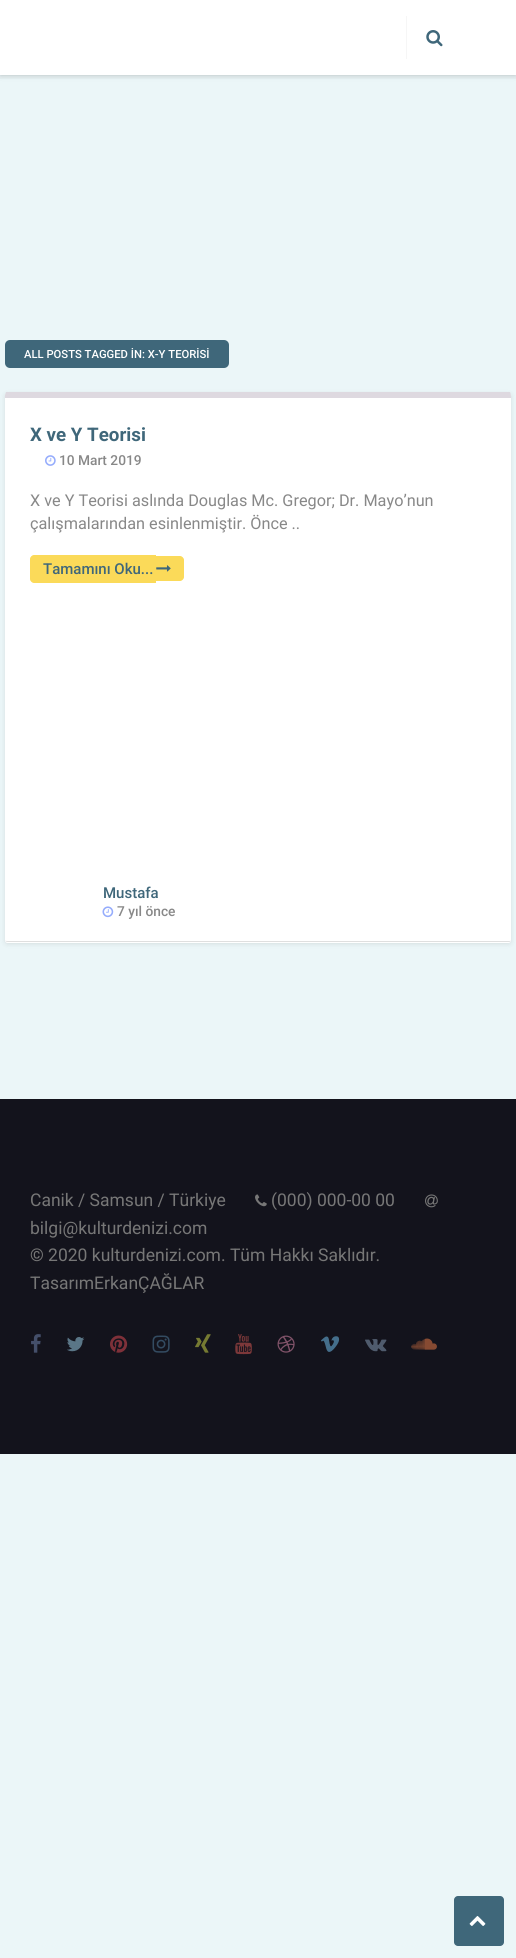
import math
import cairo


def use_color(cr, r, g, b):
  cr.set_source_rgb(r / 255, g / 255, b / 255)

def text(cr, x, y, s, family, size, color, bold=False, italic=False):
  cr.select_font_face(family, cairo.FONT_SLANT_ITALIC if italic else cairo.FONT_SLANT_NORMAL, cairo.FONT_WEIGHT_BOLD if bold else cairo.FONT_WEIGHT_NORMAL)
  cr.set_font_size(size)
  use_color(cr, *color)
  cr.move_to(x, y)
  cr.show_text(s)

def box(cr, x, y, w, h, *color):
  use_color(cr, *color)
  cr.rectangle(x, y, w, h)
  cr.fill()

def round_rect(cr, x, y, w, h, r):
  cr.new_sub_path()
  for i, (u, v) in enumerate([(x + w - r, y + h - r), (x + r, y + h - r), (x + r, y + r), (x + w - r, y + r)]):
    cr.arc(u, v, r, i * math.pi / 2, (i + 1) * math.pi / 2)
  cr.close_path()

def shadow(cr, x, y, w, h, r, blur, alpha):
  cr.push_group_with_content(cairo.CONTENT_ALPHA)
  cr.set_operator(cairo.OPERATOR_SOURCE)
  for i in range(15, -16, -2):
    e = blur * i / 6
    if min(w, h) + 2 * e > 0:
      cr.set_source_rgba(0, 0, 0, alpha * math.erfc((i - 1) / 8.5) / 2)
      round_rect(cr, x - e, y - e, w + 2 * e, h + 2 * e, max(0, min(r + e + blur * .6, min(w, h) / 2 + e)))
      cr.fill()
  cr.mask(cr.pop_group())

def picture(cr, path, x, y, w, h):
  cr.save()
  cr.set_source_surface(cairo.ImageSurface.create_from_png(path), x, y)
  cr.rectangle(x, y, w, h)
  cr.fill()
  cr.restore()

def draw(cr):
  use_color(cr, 235, 246, 248)
  cr.paint()
  use_color(cr, 0, 0, 0)
  shadow(cr, 0, 1, 516, 75, 0, 3, 0.1)
  box(cr, 0, 0, 516, 75, 255, 255, 255)
  cr.save()
  cr.rectangle(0, 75, 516, 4)
  cr.clip()
  use_color(cr, 0, 0, 0)
  shadow(cr, 0, 1, 516, 75, 0, 3, 0.1)
  cr.restore()
  box(cr, 406, 16, 1, 43, 246, 246, 246)
  picture(cr, "img_01.png", 426, 30, 17, 17)
  use_color(cr, 63, 103, 122)
  round_rect(cr, 5, 340, 224, 28, 5)
  cr.fill()
  use_color(cr, 0, 0, 0)
  shadow(cr, 5, 394, 506, 550, 2.5, 2.5, 0.1)
  use_color(cr, 255, 255, 255)
  round_rect(cr, 5, 393, 506, 550, 2.5)
  cr.fill()
  use_color(cr, 222, 217, 224)
  cr.new_path()
  cr.move_to(5, 395)
  cr.line_to(5, 398)
  cr.line_to(511, 398)
  cr.curve_to(511, 396, 511, 394, 510, 392)
  cr.line_to(6, 392)
  cr.close_path()
  cr.fill()
  use_color(cr, 223, 223, 223)
  cr.new_path()
  cr.move_to(509, 942)
  cr.curve_to(510, 942, 511, 941, 511, 940)
  cr.curve_to(511, 941, 510, 941, 509, 941)
  cr.line_to(8, 941)
  cr.curve_to(6, 941, 5, 941, 5, 940)
  cr.curve_to(5, 941, 6, 942, 8, 942)
  cr.close_path()
  cr.fill()
  picture(cr, "img_02.png", 45, 455, 11, 11)
  use_color(cr, 251, 218, 89)
  cr.new_path()
  cr.move_to(34, 555)
  cr.line_to(156, 555)
  cr.line_to(156, 583)
  cr.line_to(34, 583)
  cr.curve_to(32, 583, 30, 581, 30, 579)
  cr.line_to(30, 559)
  cr.curve_to(30, 557, 32, 555, 34, 555)
  cr.close_path()
  cr.fill()
  cr.new_path()
  cr.move_to(156, 556)
  cr.line_to(180, 556)
  cr.curve_to(182, 556, 184, 558, 184, 560)
  cr.line_to(184, 577)
  cr.curve_to(184, 579, 182, 581, 180, 581)
  cr.line_to(156, 581)
  cr.close_path()
  cr.fill()
  picture(cr, "img_03.png", 156, 565, 15, 7)
  picture(cr, "img_04.png", 102, 906, 12, 12)
  box(cr, 0, 1099, 516, 355, 19, 19, 28)
  picture(cr, "img_05.png", 255, 1194, 12, 13)
  picture(cr, "img_06.png", 425, 1194, 13, 14)
  picture(cr, "img_07.png", 31, 1334, 10, 19)
  picture(cr, "img_08.png", 67, 1337, 18, 15)
  picture(cr, "img_09.png", 110, 1335, 18, 18)
  picture(cr, "img_10.png", 152, 1335, 18, 18)
  picture(cr, "img_11.png", 195, 1334, 16, 19)
  picture(cr, "img_12.png", 235, 1334, 17, 21)
  picture(cr, "img_13.png", 277, 1335, 18, 18)
  picture(cr, "img_14.png", 321, 1336, 19, 16)
  picture(cr, "img_15.png", 365, 1339, 22, 13)
  picture(cr, "img_16.png", 411, 1338, 26, 12)
  use_color(cr, 63, 103, 122)
  round_rect(cr, 454, 1896, 50, 50, 4)
  cr.fill()
  picture(cr, "img_17.png", 469, 1916, 17, 10)
  text(cr, 24, 358, "ALL POSTS TAGGED İN: X-Y TEORİSİ", "Roboto Medium", 11.25, (255, 255, 255))
  text(cr, 30, 441, "X ve Y Teorisi", "Roboto", 18.75, (63, 103, 122), bold=True)
  text(cr, 59, 465, "10 Mart 2019", "Roboto Medium", 13.75, (136, 136, 136))
  text(cr, 30, 506, "X ve Y Teorisi aslında Douglas Mc. Gregor; Dr. Mayo’nun", "Roboto", 16.25, (136, 136, 136))
  text(cr, 30, 529, "çalışmalarından esinlenmiştir. Önce ..", "Roboto", 16.25, (136, 136, 136))
  text(cr, 43, 574, "Tamamını Oku...", "Roboto Medium", 15, (63, 103, 122))
  text(cr, 103, 898, "Mustafa", "Roboto Medium", 15, (63, 103, 122))
  text(cr, 117, 916, "7 yıl önce", "Roboto Medium", 13.75, (136, 136, 136))
  text(cr, 30, 1206, "Canik / Samsun / Türkiye", "Roboto", 17.5, (119, 119, 119))
  text(cr, 271, 1206, "(000) 000-00 00", "Roboto", 17.5, (119, 119, 119))
  text(cr, 30, 1234, "bilgi@kulturdenizi.com", "Roboto", 17.5, (119, 119, 119))
  text(cr, 30, 1261, "© 2020 kulturdenizi.com. Tüm Hakkı Saklıdır.", "Roboto", 17.5, (119, 119, 119))
  text(cr, 30, 1289, "TasarımErkanÇAĞLAR", "Roboto", 17.5, (119, 119, 119))


surface = cairo.ImageSurface(cairo.FORMAT_RGB24, 516, 1958)
cr = cairo.Context(surface)
options = cairo.FontOptions()
options.set_hint_metrics(cairo.HINT_METRICS_OFF)
options.set_hint_style(cairo.HINT_STYLE_NONE)
cr.set_font_options(options)
cr.set_miter_limit(4)
draw(cr)
surface.write_to_png("out.png")
